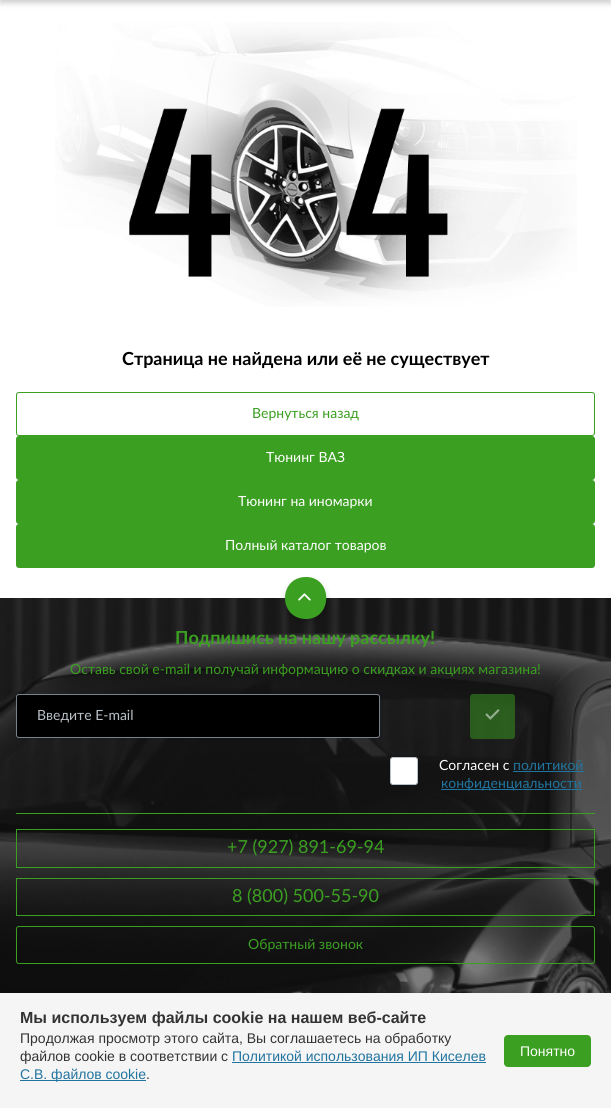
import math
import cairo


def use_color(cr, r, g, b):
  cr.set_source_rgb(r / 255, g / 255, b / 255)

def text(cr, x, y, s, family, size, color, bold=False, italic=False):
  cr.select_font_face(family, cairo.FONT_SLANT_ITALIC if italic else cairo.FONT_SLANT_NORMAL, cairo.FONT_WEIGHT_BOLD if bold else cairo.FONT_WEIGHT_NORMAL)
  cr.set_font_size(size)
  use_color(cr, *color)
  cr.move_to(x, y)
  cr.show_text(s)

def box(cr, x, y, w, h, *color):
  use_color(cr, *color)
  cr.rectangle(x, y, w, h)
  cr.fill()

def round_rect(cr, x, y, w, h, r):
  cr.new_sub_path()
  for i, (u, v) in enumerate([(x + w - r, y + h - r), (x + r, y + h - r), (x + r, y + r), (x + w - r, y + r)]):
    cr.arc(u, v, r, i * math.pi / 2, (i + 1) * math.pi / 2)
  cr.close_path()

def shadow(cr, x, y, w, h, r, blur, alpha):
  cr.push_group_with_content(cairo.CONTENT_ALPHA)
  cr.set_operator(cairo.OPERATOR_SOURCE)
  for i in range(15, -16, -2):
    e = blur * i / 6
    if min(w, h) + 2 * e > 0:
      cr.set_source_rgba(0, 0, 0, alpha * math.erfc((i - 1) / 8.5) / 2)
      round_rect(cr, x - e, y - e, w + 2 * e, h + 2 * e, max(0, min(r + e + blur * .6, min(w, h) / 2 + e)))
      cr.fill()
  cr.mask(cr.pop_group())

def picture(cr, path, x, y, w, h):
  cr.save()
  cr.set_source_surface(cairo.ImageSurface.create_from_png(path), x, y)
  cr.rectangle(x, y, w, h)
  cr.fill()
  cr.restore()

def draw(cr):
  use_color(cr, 255, 255, 255)
  cr.paint()
  use_color(cr, 0, 0, 0)
  shadow(cr, 0, -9, 611, 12, 0, 3, 0.2)
  picture(cr, "img_01.png", 55, 22, 522, 285)
  round_rect(cr, 16.5, 392.5, 578, 43, 2.5)
  use_color(cr, 59, 159, 33)
  cr.set_line_width(1)
  cr.stroke()
  round_rect(cr, 16, 436, 579, 44, 3)
  cr.fill()
  round_rect(cr, 16, 480, 579, 44, 3)
  cr.fill()
  round_rect(cr, 16, 524, 579, 44, 3)
  cr.fill()
  box(cr, 0, 598, 611, 395, 26, 26, 26)
  picture(cr, "img_02.png", 0, 598, 611, 395)
  use_color(cr, 0, 0, 0)
  shadow(cr, 285, 580, 42, 42, 21, 3, 0.16)
  use_color(cr, 59, 159, 33)
  cr.new_path()
  cr.move_to(306, 619)
  cr.curve_to(278, 619, 278, 577, 306, 577)
  cr.curve_to(333, 577, 333, 619, 306, 619)
  cr.close_path()
  cr.fill()
  picture(cr, "img_03.png", 298, 593, 13, 8)
  box(cr, 16, 813, 579, 1, 59, 159, 33)
  use_color(cr, 0, 0, 0)
  round_rect(cr, 16.5, 694.5, 363, 43, 2.5)
  cr.fill_preserve()
  use_color(cr, 121, 129, 141)
  cr.stroke()
  cr.set_source_rgba(0.231, 0.624, 0.129, 0.5)
  round_rect(cr, 470, 694, 45, 45, 3)
  cr.fill()
  picture(cr, "img_04.png", 485, 709, 15, 11)
  use_color(cr, 255, 255, 255)
  round_rect(cr, 390.5, 757.5, 27, 27, 2.5)
  cr.fill_preserve()
  use_color(cr, 186, 192, 200)
  cr.stroke()
  box(cr, 513, 771, 71, 1, 33, 116, 159)
  box(cr, 441, 789, 141, 1, 33, 116, 159)
  cr.rectangle(16.5, 829.5, 578, 38)
  use_color(cr, 59, 159, 33)
  cr.stroke()
  cr.rectangle(16.5, 878.5, 578, 37)
  cr.stroke()
  round_rect(cr, 16.5, 926.5, 578, 37, 2.5)
  cr.stroke()
  use_color(cr, 0, 0, 0)
  shadow(cr, 0, 991, 611, 115, 0, 5, 0.1)
  box(cr, 0, 993, 611, 115, 245, 245, 245)
  box(cr, 232, 1062, 254, 1, 33, 116, 159)
  box(cr, 20, 1080, 126, 1, 33, 116, 159)
  use_color(cr, 59, 159, 33)
  round_rect(cr, 504, 1035, 87, 32, 4)
  cr.fill()
  text(cr, 122, 365, "Страница не найдена или её не существует", "Lato", 18, (0, 0, 0), bold=True)
  text(cr, 252, 418, "Вернуться назад", "Lato", 14, (59, 159, 33))
  text(cr, 266, 462, "Тюнинг ВАЗ", "Lato", 14, (255, 255, 255))
  text(cr, 238, 506, "Тюнинг на иномарки", "Lato", 14, (255, 255, 255))
  text(cr, 225, 550, "Полный каталог товаров", "Lato", 14, (255, 255, 255))
  text(cr, 175, 644, "Подпишись на нашу рассылку!", "Lato", 18, (59, 159, 33), bold=True)
  text(cr, 70, 674, "Оставь свой e-mail и получай информацию о скидках и акциях магазина!", "Lato", 14, (59, 159, 33))
  text(cr, 37, 720, "Введите E-mail", "Lato", 14, (186, 192, 200))
  text(cr, 439, 770, "Согласен с", "Lato", 14, (255, 255, 255))
  text(cr, 513, 770, "политикой", "Lato", 14, (33, 116, 159))
  text(cr, 441, 788, "конфиденциальности", "Lato", 14, (33, 116, 159))
  text(cr, 227, 853, "+7 (927) 891-69-94", "Lato", 18, (59, 159, 33))
  text(cr, 232, 902, "8 (800) 500-55-90", "Lato", 18, (59, 159, 33))
  text(cr, 248, 949, "Обратный звонок", "Lato", 14, (59, 159, 33))
  text(cr, 20, 1023, "Мы используем файлы cookie на нашем веб-сайте", "Liberation Sans", 16, (51, 51, 51), bold=True)
  text(cr, 20, 1043, "Продолжая просмотр этого сайта, Вы соглашаетесь на обработку", "Liberation Sans", 14, (51, 51, 51))
  text(cr, 20, 1061, "файлов cookie в соответствии с", "Liberation Sans", 14, (51, 51, 51))
  text(cr, 232, 1061, "Политикой использования ИП Киселев", "Liberation Sans", 14, (33, 116, 159))
  text(cr, 20, 1079, "С.В. файлов cookie", "Liberation Sans", 14, (33, 116, 159))
  text(cr, 146, 1079, ".", "Liberation Sans", 14, (51, 51, 51))
  text(cr, 520, 1056, "Понятно", "Liberation Sans", 14, (255, 255, 255))


surface = cairo.ImageSurface(cairo.FORMAT_RGB24, 611, 1108)
cr = cairo.Context(surface)
options = cairo.FontOptions()
options.set_hint_metrics(cairo.HINT_METRICS_OFF)
options.set_hint_style(cairo.HINT_STYLE_NONE)
cr.set_font_options(options)
cr.set_miter_limit(4)
draw(cr)
surface.write_to_png("out.png")
